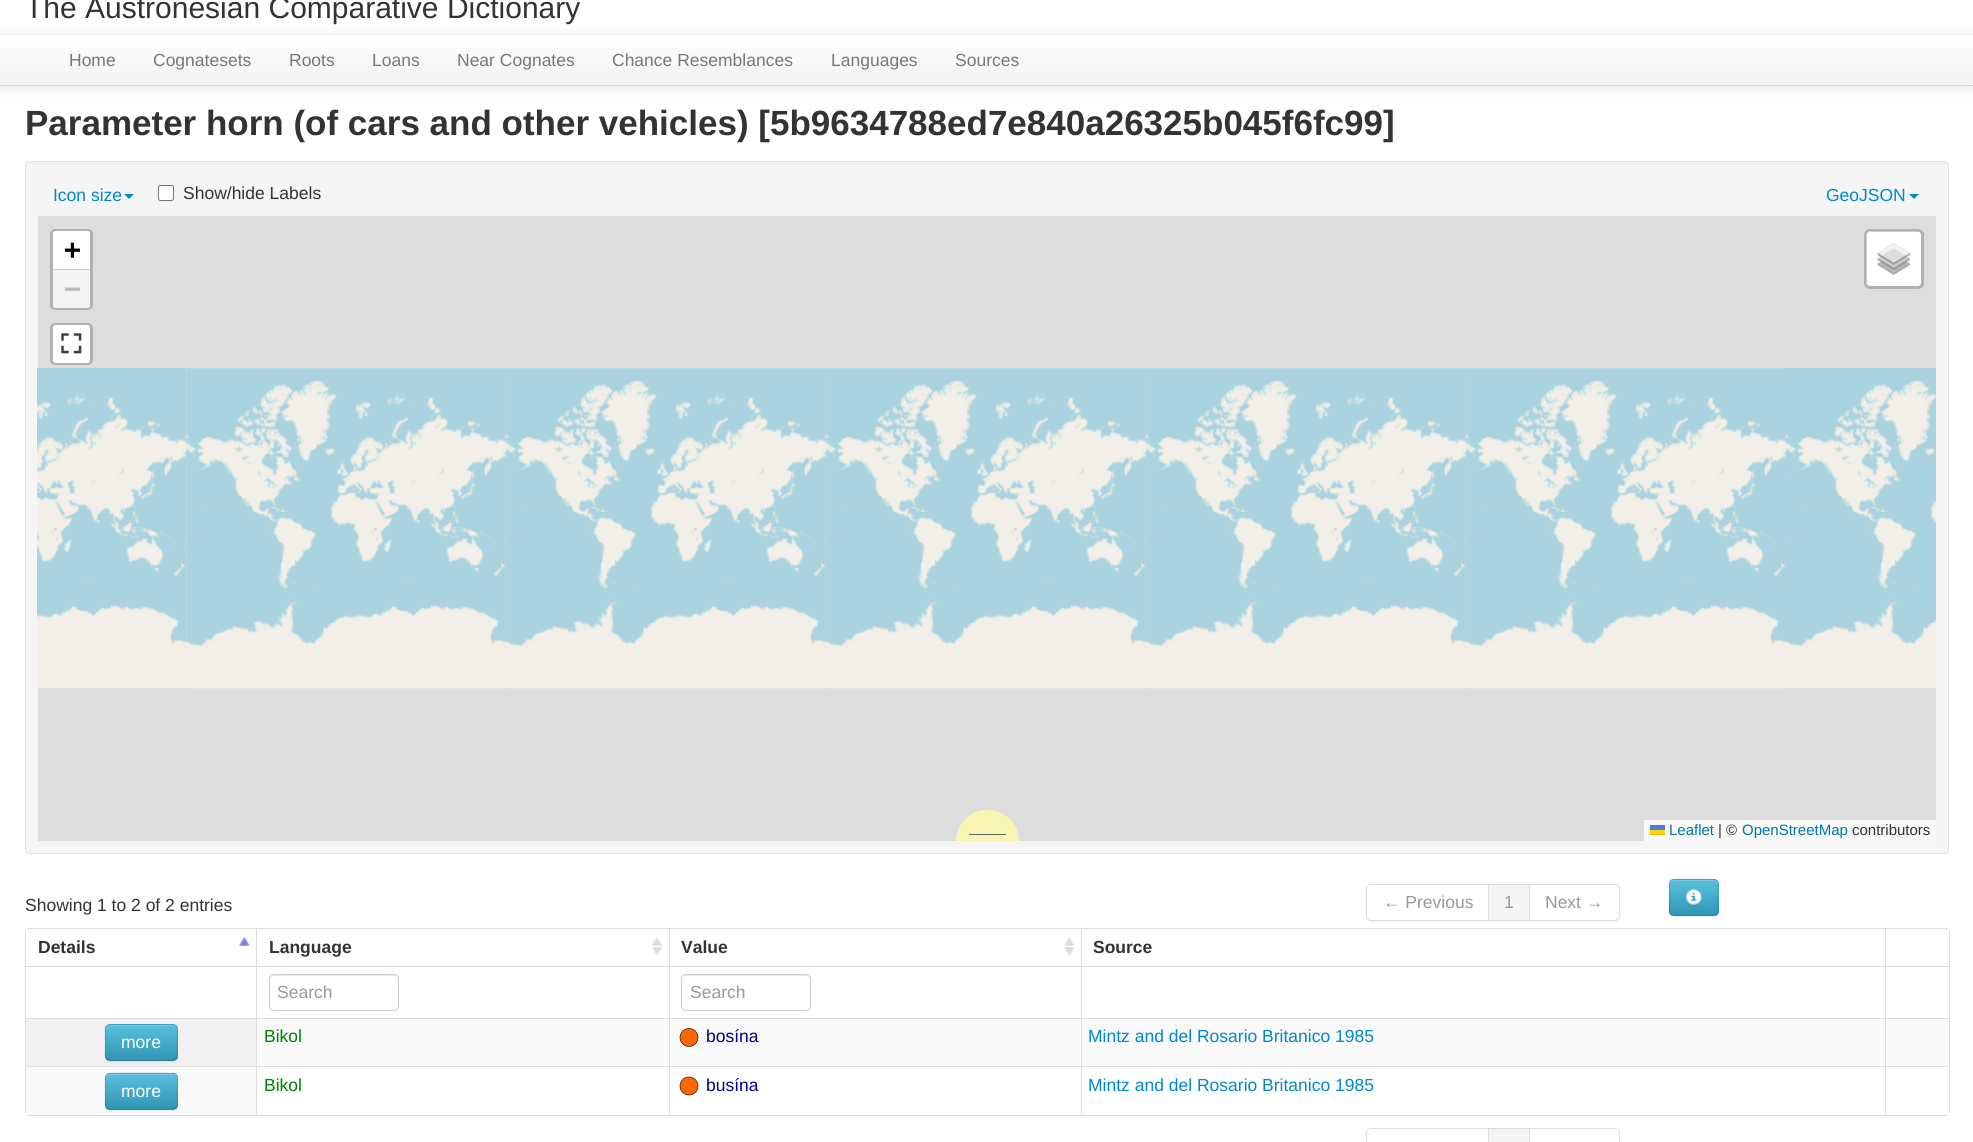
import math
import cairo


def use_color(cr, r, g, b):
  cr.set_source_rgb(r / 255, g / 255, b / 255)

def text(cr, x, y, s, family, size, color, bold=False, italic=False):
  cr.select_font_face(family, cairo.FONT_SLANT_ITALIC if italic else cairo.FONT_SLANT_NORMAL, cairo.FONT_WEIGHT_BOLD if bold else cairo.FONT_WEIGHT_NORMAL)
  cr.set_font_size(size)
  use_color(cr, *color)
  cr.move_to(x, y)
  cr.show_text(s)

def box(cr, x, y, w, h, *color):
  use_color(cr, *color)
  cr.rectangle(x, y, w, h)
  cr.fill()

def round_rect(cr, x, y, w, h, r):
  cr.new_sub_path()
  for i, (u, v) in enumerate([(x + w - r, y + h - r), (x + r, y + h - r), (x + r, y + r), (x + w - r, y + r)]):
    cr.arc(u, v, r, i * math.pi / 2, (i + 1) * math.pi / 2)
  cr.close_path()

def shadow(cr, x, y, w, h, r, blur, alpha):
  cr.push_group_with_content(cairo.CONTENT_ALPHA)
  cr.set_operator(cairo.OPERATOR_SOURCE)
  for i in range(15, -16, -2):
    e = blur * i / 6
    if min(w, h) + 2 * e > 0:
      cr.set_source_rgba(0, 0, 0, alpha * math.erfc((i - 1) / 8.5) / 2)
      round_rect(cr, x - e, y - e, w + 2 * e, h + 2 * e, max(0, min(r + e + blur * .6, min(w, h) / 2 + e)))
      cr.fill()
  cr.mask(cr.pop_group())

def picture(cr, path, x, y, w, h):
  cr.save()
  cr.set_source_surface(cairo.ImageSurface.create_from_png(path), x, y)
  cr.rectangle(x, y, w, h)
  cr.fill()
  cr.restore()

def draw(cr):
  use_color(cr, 255, 255, 255)
  cr.paint()
  use_color(cr, 0, 0, 0)
  shadow(cr, 0, 36, 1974, 52, 0, 6, 0.1)
  gradient = cairo.LinearGradient(987, 35, 987, 85)
  gradient.add_color_stop_rgba(0, 1, 1, 1, 1)
  gradient.add_color_stop_rgba(1, 0.949, 0.949, 0.949, 1)
  cr.set_source(gradient)
  cr.rectangle(0, 35, 1973, 50)
  cr.fill()
  box(cr, 0, 85, 1973, 1, 212, 212, 212)
  use_color(cr, 245, 245, 245)
  round_rect(cr, 25, 161, 1924, 693, 4)
  cr.fill()
  use_color(cr, 233, 233, 233)
  cr.new_path()
  cr.move_to(29, 164)
  cr.line_to(1945, 164)
  cr.curve_to(1946, 164, 1948, 165, 1948, 166)
  cr.curve_to(1948, 164, 1947, 163, 1946, 163)
  cr.line_to(28, 163)
  cr.curve_to(27, 163, 26, 164, 26, 166)
  cr.curve_to(26, 165, 27, 164, 29, 164)
  cr.close_path()
  cr.fill()
  round_rect(cr, 25.5, 161.5, 1923, 692, 3.5)
  use_color(cr, 227, 227, 227)
  cr.set_line_width(1)
  cr.stroke()
  use_color(cr, 0, 136, 204)
  cr.new_path()
  cr.move_to(124, 194)
  cr.line_to(134, 194)
  cr.line_to(129, 199)
  cr.close_path()
  cr.fill()
  use_color(cr, 255, 255, 255)
  round_rect(cr, 158.5, 185.5, 15, 15, 2)
  cr.fill_preserve()
  use_color(cr, 118, 118, 118)
  cr.stroke()
  use_color(cr, 0, 136, 204)
  cr.new_path()
  cr.move_to(1909, 194)
  cr.line_to(1919, 194)
  cr.line_to(1914, 199)
  cr.close_path()
  cr.fill()
  box(cr, 38, 216, 1898, 625, 221, 221, 221)
  round_rect(cr, 51.5, 230.5, 40, 78, 3.5)
  use_color(cr, 177, 177, 177)
  cr.set_line_width(3)
  cr.stroke()
  use_color(cr, 255, 255, 255)
  cr.new_path()
  cr.move_to(55.5, 231)
  cr.line_to(87.5, 231)
  cr.curve_to(89, 231, 90, 232, 90, 233.5)
  cr.line_to(90, 270)
  cr.line_to(53, 270)
  cr.line_to(53, 233.5)
  cr.curve_to(53, 232, 54, 231, 55.5, 231)
  cr.close_path()
  cr.fill()
  box(cr, 53, 269, 37, 1, 204, 204, 204)
  use_color(cr, 244, 244, 244)
  cr.new_path()
  cr.move_to(53, 270)
  cr.line_to(90, 270)
  cr.line_to(90, 305.5)
  cr.curve_to(90, 307, 89, 308, 87.5, 308)
  cr.line_to(55.5, 308)
  cr.curve_to(54, 308, 53, 307, 53, 305.5)
  cr.close_path()
  cr.fill()
  round_rect(cr, 51.5, 324.5, 40, 39, 3.5)
  use_color(cr, 177, 177, 177)
  cr.stroke()
  use_color(cr, 255, 255, 255)
  round_rect(cr, 53, 325, 37, 38, 2.5)
  cr.fill()
  picture(cr, "img_01.png", 61, 333, 21, 21)
  round_rect(cr, 1866, 231, 55, 55, 4)
  cr.fill()
  round_rect(cr, 1865.5, 230.5, 57, 57, 4.5)
  cr.set_source_rgba(0, 0, 0, 0.2)
  cr.stroke()
  picture(cr, "img_02.png", 1877, 243, 33, 32)
  use_color(cr, 248, 244, 180)
  cr.new_path()
  cr.move_to(987, 810)
  cr.line_to(988, 810)
  cr.curve_to(1005, 810, 1019, 824, 1019, 841)
  cr.line_to(956, 841)
  cr.curve_to(956, 824, 970, 810, 987, 810)
  cr.close_path()
  cr.fill()
  box(cr, 969, 834, 37, 1, 101, 101, 95)
  box(cr, 1644, 820, 292, 21, 248, 248, 248)
  box(cr, 1650, 825, 15, 5, 76, 123, 225)
  box(cr, 1650, 830, 15, 4, 255, 213, 0)
  box(cr, 1650, 834, 15, 1, 224, 188, 0)
  picture(cr, "img_03.png", 37, 368, 149, 320)
  picture(cr, "img_05.png", 826, 368, 321, 321)
  picture(cr, "img_04.png", 506, 368, 321, 321)
  picture(cr, "img_04.png", 186, 368, 321, 321)
  picture(cr, "img_06.png", 1146, 368, 321, 321)
  picture(cr, "img_06.png", 1466, 368, 321, 321)
  picture(cr, "img_07.png", 1786, 368, 150, 320)
  cr.save()
  cr.set_fill_rule(cairo.FILL_RULE_EVEN_ODD)
  cr.new_path()
  cr.move_to(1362, 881)
  cr.line_to(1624, 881)
  cr.line_to(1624, 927)
  cr.line_to(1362, 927)
  cr.close_path()
  cr.move_to(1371, 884)
  cr.line_to(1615, 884)
  cr.curve_to(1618, 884, 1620, 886, 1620, 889)
  cr.line_to(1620, 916)
  cr.curve_to(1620, 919, 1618, 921, 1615, 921)
  cr.line_to(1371, 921)
  cr.curve_to(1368, 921, 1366, 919, 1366, 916)
  cr.line_to(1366, 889)
  cr.curve_to(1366, 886, 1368, 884, 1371, 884)
  cr.close_path()
  cr.clip()
  use_color(cr, 0, 0, 0)
  shadow(cr, 1366, 885, 254, 38, 5, 1, 0.05)
  cr.restore()
  cr.new_path()
  cr.move_to(1371, 884.5)
  cr.line_to(1488.5, 884.5)
  cr.line_to(1488.5, 920.5)
  cr.line_to(1371, 920.5)
  cr.curve_to(1368.5, 920.5, 1366.5, 918.5, 1366.5, 916)
  cr.line_to(1366.5, 889)
  cr.curve_to(1366.5, 886.5, 1368.5, 884.5, 1371, 884.5)
  cr.close_path()
  use_color(cr, 221, 221, 221)
  cr.set_line_width(1)
  cr.stroke()
  box(cr, 1489, 885, 40, 35, 245, 245, 245)
  box(cr, 1489, 884, 41, 1, 221, 221, 221)
  box(cr, 1529, 884, 1, 37, 221, 221, 221)
  box(cr, 1489, 920, 41, 1, 221, 221, 221)
  cr.set_fill_rule(cairo.FILL_RULE_EVEN_ODD)
  cr.new_path()
  cr.move_to(1530, 884)
  cr.line_to(1615, 884)
  cr.curve_to(1618, 884, 1620, 886, 1620, 889)
  cr.line_to(1620, 916)
  cr.curve_to(1620, 919, 1618, 921, 1615, 921)
  cr.line_to(1530, 921)
  cr.close_path()
  cr.move_to(1530, 885)
  cr.line_to(1615, 885)
  cr.curve_to(1617, 885, 1619, 887, 1619, 889)
  cr.line_to(1619, 916)
  cr.curve_to(1619, 918, 1617, 920, 1615, 920)
  cr.line_to(1530, 920)
  cr.close_path()
  cr.fill()
  use_color(cr, 0, 0, 0)
  shadow(cr, 1669, 880, 50, 38, 5, 1, 0.05)
  use_color(cr, 73, 175, 205)
  round_rect(cr, 1669, 879, 50, 37, 5)
  cr.fill()
  cr.save()
  cr.set_fill_rule(cairo.FILL_RULE_WINDING)
  round_rect(cr, 1669, 879, 50, 37, 5)
  cr.clip()
  gradient = cairo.LinearGradient(1694, 880, 1694, 915)
  gradient.add_color_stop_rgba(0, 0.357, 0.753, 0.871, 1)
  gradient.add_color_stop_rgba(1, 0.184, 0.588, 0.706, 1)
  cr.set_source(gradient)
  cr.rectangle(1669, 880, 50, 35)
  cr.fill()
  cr.restore()
  use_color(cr, 123, 204, 228)
  cr.set_fill_rule(cairo.FILL_RULE_WINDING)
  cr.new_path()
  cr.move_to(1674, 881)
  cr.line_to(1714, 881)
  cr.curve_to(1716, 881, 1718, 883, 1718, 885)
  cr.curve_to(1718, 879, 1712, 880, 1707, 880)
  cr.line_to(1681, 880)
  cr.curve_to(1676, 880, 1670, 879, 1670, 885)
  cr.curve_to(1670, 883, 1672, 881, 1674, 881)
  cr.close_path()
  cr.fill()
  cr.new_path()
  cr.move_to(1717, 914.5)
  cr.curve_to(1716, 915, 1715, 915.5, 1714, 915.5)
  cr.line_to(1674, 915.5)
  cr.curve_to(1672.5, 915.5, 1671.5, 915, 1670.5, 914.5)
  cr.set_source_rgba(0, 0, 0, 0.25)
  cr.set_line_width(1.2)
  cr.stroke()
  cr.new_path()
  cr.move_to(1670.5, 914.5)
  cr.curve_to(1670, 913.5, 1669.5, 912.5, 1669.5, 911)
  cr.line_to(1669.5, 884)
  cr.curve_to(1669.5, 882.5, 1670, 881.5, 1670.5, 880.5)
  cr.curve_to(1671.5, 880, 1672.5, 879.5, 1674, 879.5)
  cr.line_to(1714, 879.5)
  cr.curve_to(1715, 879.5, 1716, 880, 1717, 880.5)
  cr.curve_to(1717.5, 881.5, 1718, 882.5, 1718, 884)
  cr.line_to(1718, 911)
  cr.curve_to(1718, 912.5, 1717.5, 913.5, 1717, 914.5)
  cr.set_source_rgba(0, 0, 0, 0.1)
  cr.stroke()
  picture(cr, "img_08.png", 1686, 889, 16, 17)
  use_color(cr, 221, 221, 221)
  cr.set_fill_rule(cairo.FILL_RULE_EVEN_ODD)
  cr.new_path()
  cr.move_to(30, 928)
  cr.line_to(1945, 928)
  cr.curve_to(1948, 928, 1950, 930, 1950, 932)
  cr.line_to(1950, 1111)
  cr.curve_to(1950, 1114, 1948, 1116, 1945, 1116)
  cr.line_to(30, 1116)
  cr.curve_to(27, 1116, 25, 1114, 25, 1111)
  cr.line_to(25, 932)
  cr.curve_to(25, 930, 27, 928, 30, 928)
  cr.close_path()
  cr.move_to(30, 929)
  cr.line_to(1945, 929)
  cr.curve_to(1947, 929, 1949, 930, 1949, 932)
  cr.line_to(1949, 1111)
  cr.curve_to(1949, 1113, 1947, 1115, 1945, 1115)
  cr.line_to(30, 1115)
  cr.curve_to(27, 1115, 25, 1113, 25, 1111)
  cr.line_to(25, 932)
  cr.curve_to(25, 930, 27, 929, 30, 929)
  cr.close_path()
  cr.fill()
  picture(cr, "img_09.png", 238, 937, 12, 9)
  box(cr, 25, 931, 1, 35, 221, 221, 221)
  picture(cr, "img_10.png", 651, 937, 12, 19)
  box(cr, 256, 929, 1, 37, 221, 221, 221)
  picture(cr, "img_11.png", 1064, 937, 11, 19)
  box(cr, 669, 929, 1, 37, 221, 221, 221)
  box(cr, 1081, 929, 1, 37, 221, 221, 221)
  box(cr, 1885, 929, 1, 37, 221, 221, 221)
  box(cr, 25, 966, 1924, 1, 221, 221, 221)
  box(cr, 25, 966, 1, 52, 221, 221, 221)
  box(cr, 256, 966, 1, 52, 221, 221, 221)
  use_color(cr, 236, 236, 236)
  cr.set_fill_rule(cairo.FILL_RULE_WINDING)
  cr.new_path()
  cr.move_to(274, 976)
  cr.line_to(394, 976)
  cr.curve_to(396, 976, 398, 978, 398, 980)
  cr.curve_to(398, 970, 376, 975, 374, 975)
  cr.line_to(294, 975)
  cr.curve_to(292, 975, 270, 970, 270, 980)
  cr.curve_to(270, 978, 272, 976, 274, 976)
  cr.close_path()
  cr.fill()
  round_rect(cr, 269.5, 974.5, 129, 36, 4.5)
  use_color(cr, 204, 204, 204)
  cr.set_line_width(1)
  cr.stroke()
  box(cr, 669, 966, 1, 52, 221, 221, 221)
  use_color(cr, 236, 236, 236)
  cr.new_path()
  cr.move_to(686, 976)
  cr.line_to(806, 976)
  cr.curve_to(808, 976, 810, 978, 810, 980)
  cr.curve_to(810, 977, 809, 975, 806, 975)
  cr.line_to(686, 975)
  cr.curve_to(685, 975, 684, 976, 684, 977)
  cr.close_path()
  cr.fill()
  round_rect(cr, 681.5, 974.5, 129, 36, 4.5)
  use_color(cr, 204, 204, 204)
  cr.stroke()
  box(cr, 1081, 966, 1, 52, 221, 221, 221)
  box(cr, 1885, 966, 1, 52, 221, 221, 221)
  box(cr, 257, 1019, 1692, 47, 249, 249, 249)
  box(cr, 26, 1019, 230, 47, 241, 241, 241)
  box(cr, 25, 1018, 1924, 1, 221, 221, 221)
  box(cr, 25, 1018, 1, 48, 221, 221, 221)
  box(cr, 25, 1112, 1924, 3, 255, 255, 255)
  use_color(cr, 249, 249, 249)
  cr.new_path()
  cr.move_to(25, 1066)
  cr.line_to(256, 1066)
  cr.line_to(256, 1115)
  cr.line_to(30, 1115)
  cr.curve_to(27, 1115, 25, 1113, 25, 1110)
  cr.close_path()
  cr.fill()
  box(cr, 25, 1066, 1924, 1, 221, 221, 221)
  use_color(cr, 0, 0, 0)
  shadow(cr, 105, 1025, 73, 38, 5, 1, 0.05)
  use_color(cr, 73, 175, 205)
  round_rect(cr, 105, 1024, 73, 37, 5)
  cr.fill()
  cr.save()
  round_rect(cr, 105, 1024, 73, 37, 5)
  cr.clip()
  gradient = cairo.LinearGradient(141, 1025, 141, 1060)
  gradient.add_color_stop_rgba(0, 0.357, 0.753, 0.871, 1)
  gradient.add_color_stop_rgba(1, 0.184, 0.588, 0.706, 1)
  cr.set_source(gradient)
  cr.rectangle(105, 1025, 73, 35)
  cr.fill()
  cr.restore()
  use_color(cr, 123, 204, 228)
  cr.new_path()
  cr.move_to(110, 1026)
  cr.line_to(172, 1026)
  cr.curve_to(175, 1026, 176, 1028, 176, 1030)
  cr.curve_to(176, 1023, 167, 1025, 162, 1025)
  cr.line_to(120, 1025)
  cr.curve_to(115, 1025, 106, 1023, 106, 1030)
  cr.curve_to(106, 1028, 108, 1026, 110, 1026)
  cr.close_path()
  cr.fill()
  cr.new_path()
  cr.move_to(175.5, 1059.5)
  cr.line_to(173, 1060.5)
  cr.line_to(109.5, 1060.5)
  cr.line_to(107, 1059.5)
  cr.set_source_rgba(0, 0, 0, 0.25)
  cr.set_line_width(1.2)
  cr.stroke()
  cr.new_path()
  cr.move_to(107, 1059.5)
  cr.curve_to(105, 1057.5, 105.5, 1054, 105.5, 1051.5)
  cr.line_to(105.5, 1042.5)
  cr.curve_to(105.5, 1024, 102, 1024.5, 120.5, 1024.5)
  cr.line_to(162, 1024.5)
  cr.curve_to(180.5, 1024.5, 177, 1024, 177, 1042.5)
  cr.line_to(177, 1051.5)
  cr.curve_to(177, 1054, 177.5, 1057.5, 175.5, 1059.5)
  cr.set_source_rgba(0, 0, 0, 0.1)
  cr.stroke()
  box(cr, 256, 1018, 1, 48, 221, 221, 221)
  box(cr, 669, 1018, 1, 48, 221, 221, 221)
  use_color(cr, 255, 102, 0)
  cr.arc(689, 1037.5, 9, 0, 2 * math.pi)
  cr.fill_preserve()
  use_color(cr, 0, 0, 0)
  cr.set_line_width(0.6)
  cr.stroke()
  box(cr, 1081, 1018, 1, 48, 221, 221, 221)
  box(cr, 1885, 1018, 1, 48, 221, 221, 221)
  box(cr, 25, 1066, 1, 47, 221, 221, 221)
  use_color(cr, 0, 0, 0)
  shadow(cr, 105, 1074, 73, 37, 5, 1, 0.05)
  use_color(cr, 73, 175, 205)
  round_rect(cr, 105, 1073, 73, 37, 5)
  cr.fill()
  cr.save()
  round_rect(cr, 105, 1073, 73, 37, 5)
  cr.clip()
  gradient = cairo.LinearGradient(141, 1074, 141, 1109)
  gradient.add_color_stop_rgba(0, 0.357, 0.753, 0.871, 1)
  gradient.add_color_stop_rgba(1, 0.184, 0.588, 0.706, 1)
  cr.set_source(gradient)
  cr.rectangle(105, 1074, 73, 35)
  cr.fill()
  cr.restore()
  use_color(cr, 123, 204, 228)
  cr.new_path()
  cr.move_to(110, 1075)
  cr.line_to(172, 1075)
  cr.curve_to(175, 1075, 176, 1077, 176, 1079)
  cr.curve_to(176, 1072, 167, 1074, 162, 1074)
  cr.line_to(120, 1074)
  cr.curve_to(115, 1074, 106, 1072, 106, 1079)
  cr.curve_to(106, 1077, 108, 1075, 110, 1075)
  cr.close_path()
  cr.fill()
  cr.new_path()
  cr.move_to(175.5, 1108)
  cr.line_to(173, 1109.5)
  cr.line_to(109.5, 1109.5)
  cr.line_to(107, 1108)
  cr.set_source_rgba(0, 0, 0, 0.25)
  cr.set_line_width(1.2)
  cr.stroke()
  cr.new_path()
  cr.move_to(107, 1108)
  cr.curve_to(105, 1106, 105.5, 1103, 105.5, 1100.5)
  cr.line_to(105.5, 1091)
  cr.curve_to(105.5, 1072.5, 102, 1073, 120.5, 1073)
  cr.line_to(162, 1073)
  cr.curve_to(180.5, 1073, 177, 1072.5, 177, 1091)
  cr.line_to(177, 1100.5)
  cr.curve_to(177, 1103, 177.5, 1106, 175.5, 1108)
  cr.set_source_rgba(0, 0, 0, 0.1)
  cr.stroke()
  box(cr, 256, 1066, 1, 49, 221, 221, 221)
  box(cr, 669, 1066, 1, 49, 221, 221, 221)
  use_color(cr, 255, 102, 0)
  cr.arc(689, 1086, 9, 0, 2 * math.pi)
  cr.fill_preserve()
  use_color(cr, 0, 0, 0)
  cr.set_line_width(0.6)
  cr.stroke()
  box(cr, 1081, 1066, 1, 49, 221, 221, 221)
  box(cr, 1885, 1066, 1, 49, 221, 221, 221)
  cr.new_path()
  cr.move_to(1371, 1128.5)
  cr.line_to(1488.5, 1128.5)
  cr.line_to(1488.5, 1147.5)
  cr.line_to(1371, 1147.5)
  cr.curve_to(1368.5, 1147.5, 1366.5, 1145.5, 1366.5, 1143)
  cr.line_to(1366.5, 1133)
  cr.curve_to(1366.5, 1130.5, 1368.5, 1128.5, 1371, 1128.5)
  cr.close_path()
  cr.set_line_width(1)
  cr.stroke()
  box(cr, 1489, 1129, 40, 13, 245, 245, 245)
  box(cr, 1489, 1128, 41, 1, 221, 221, 221)
  box(cr, 1529, 1128, 1, 14, 221, 221, 221)
  cr.set_fill_rule(cairo.FILL_RULE_EVEN_ODD)
  cr.new_path()
  cr.move_to(1530, 1128)
  cr.line_to(1615, 1128)
  cr.curve_to(1618, 1128, 1620, 1130, 1620, 1132)
  cr.line_to(1620, 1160)
  cr.curve_to(1620, 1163, 1618, 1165, 1615, 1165)
  cr.line_to(1530, 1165)
  cr.close_path()
  cr.move_to(1530, 1129)
  cr.line_to(1615, 1129)
  cr.curve_to(1617, 1129, 1619, 1130, 1619, 1132)
  cr.line_to(1619, 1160)
  cr.curve_to(1619, 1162, 1617, 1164, 1615, 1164)
  cr.line_to(1530, 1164)
  cr.close_path()
  cr.fill()
  text(cr, 25, 18, "The Austronesian Comparative Dictionary", "Liberation Sans", 30, (51, 51, 51))
  text(cr, 69, 66, "Home", "Liberation Sans", 17.5, (119, 119, 119))
  text(cr, 153, 66, "Cognatesets", "Liberation Sans", 17.5, (119, 119, 119))
  text(cr, 289, 66, "Roots", "Liberation Sans", 17.5, (119, 119, 119))
  text(cr, 372, 66, "Loans", "Liberation Sans", 17.5, (119, 119, 119))
  text(cr, 457, 66, "Near Cognates", "Liberation Sans", 17.5, (119, 119, 119))
  text(cr, 612, 66, "Chance Resemblances", "Liberation Sans", 17.5, (119, 119, 119))
  text(cr, 831, 66, "Languages", "Liberation Sans", 17.5, (119, 119, 119))
  text(cr, 955, 66, "Sources", "Liberation Sans", 17.5, (119, 119, 119))
  text(cr, 25, 135, "Parameter horn (of cars and other vehicles) [5b9634788ed7e840a26325b045f6fc99]", "Liberation Sans", 35, (51, 51, 51), bold=True)
  text(cr, 53, 201, "Icon size", "Liberation Sans", 17.5, (0, 136, 204))
  text(cr, 183, 199, "Show/hide Labels", "Liberation Sans", 17.5, (51, 51, 51))
  text(cr, 1826, 201, "GeoJSON", "Liberation Sans", 17.5, (0, 136, 204))
  text(cr, 64, 259, "+", "DejaVu Sans Mono", 28, (0, 0, 0), bold=True)
  text(cr, 64, 298, "−", "DejaVu Sans Mono", 28, (187, 187, 187), bold=True)
  text(cr, 1669, 835, "Leaflet", "Liberation Sans", 15, (0, 120, 168))
  text(cr, 1718, 835, "| ©", "Liberation Sans", 15, (51, 51, 51))
  text(cr, 1742, 835, "OpenStreetMap", "Liberation Sans", 15, (0, 120, 168))
  text(cr, 1852, 835, "contributors", "Liberation Sans", 15, (51, 51, 51))
  text(cr, 25, 911, "Showing 1 to 2 of 2 entries", "Liberation Sans", 17.5, (51, 51, 51))
  text(cr, 1383, 908, "← Previous", "Liberation Sans", 17.5, (153, 153, 153))
  text(cr, 1504, 908, "1", "Liberation Sans", 17.5, (153, 153, 153))
  text(cr, 1545, 908, "Next →", "Liberation Sans", 17.5, (153, 153, 153))
  text(cr, 38, 953, "Details", "Liberation Sans", 17.5, (51, 51, 51), bold=True)
  text(cr, 269, 953, "Language", "Liberation Sans", 17.5, (51, 51, 51), bold=True)
  text(cr, 681, 953, "Value", "Liberation Sans", 17.5, (51, 51, 51), bold=True)
  text(cr, 1093, 953, "Source", "Liberation Sans", 17.5, (51, 51, 51), bold=True)
  text(cr, 277, 998, "Search", "Liberation Sans", 17.5, (153, 153, 153))
  text(cr, 690, 998, "Search", "Liberation Sans", 17.5, (153, 153, 153))
  text(cr, 121, 1048, "more", "Liberation Sans", 17.5, (255, 255, 255))
  text(cr, 264, 1042, "Bikol", "Liberation Sans", 17.5, (0, 128, 0))
  text(cr, 706, 1042, "bosína", "Liberation Sans", 17.5, (0, 0, 139))
  text(cr, 1088, 1042, "Mintz and del Rosario Britanico 1985", "Liberation Sans", 17.5, (0, 136, 204))
  text(cr, 121, 1097, "more", "Liberation Sans", 17.5, (255, 255, 255))
  text(cr, 264, 1091, "Bikol", "Liberation Sans", 17.5, (0, 128, 0))
  text(cr, 706, 1091, "busína", "Liberation Sans", 17.5, (0, 0, 139))
  text(cr, 1088, 1091, "Mintz and del Rosario Britanico 1985", "Liberation Sans", 17.5, (0, 136, 204))


surface = cairo.ImageSurface(cairo.FORMAT_RGB24, 1973, 1142)
cr = cairo.Context(surface)
options = cairo.FontOptions()
options.set_hint_metrics(cairo.HINT_METRICS_OFF)
options.set_hint_style(cairo.HINT_STYLE_NONE)
cr.set_font_options(options)
cr.set_miter_limit(4)
draw(cr)
surface.write_to_png("out.png")
